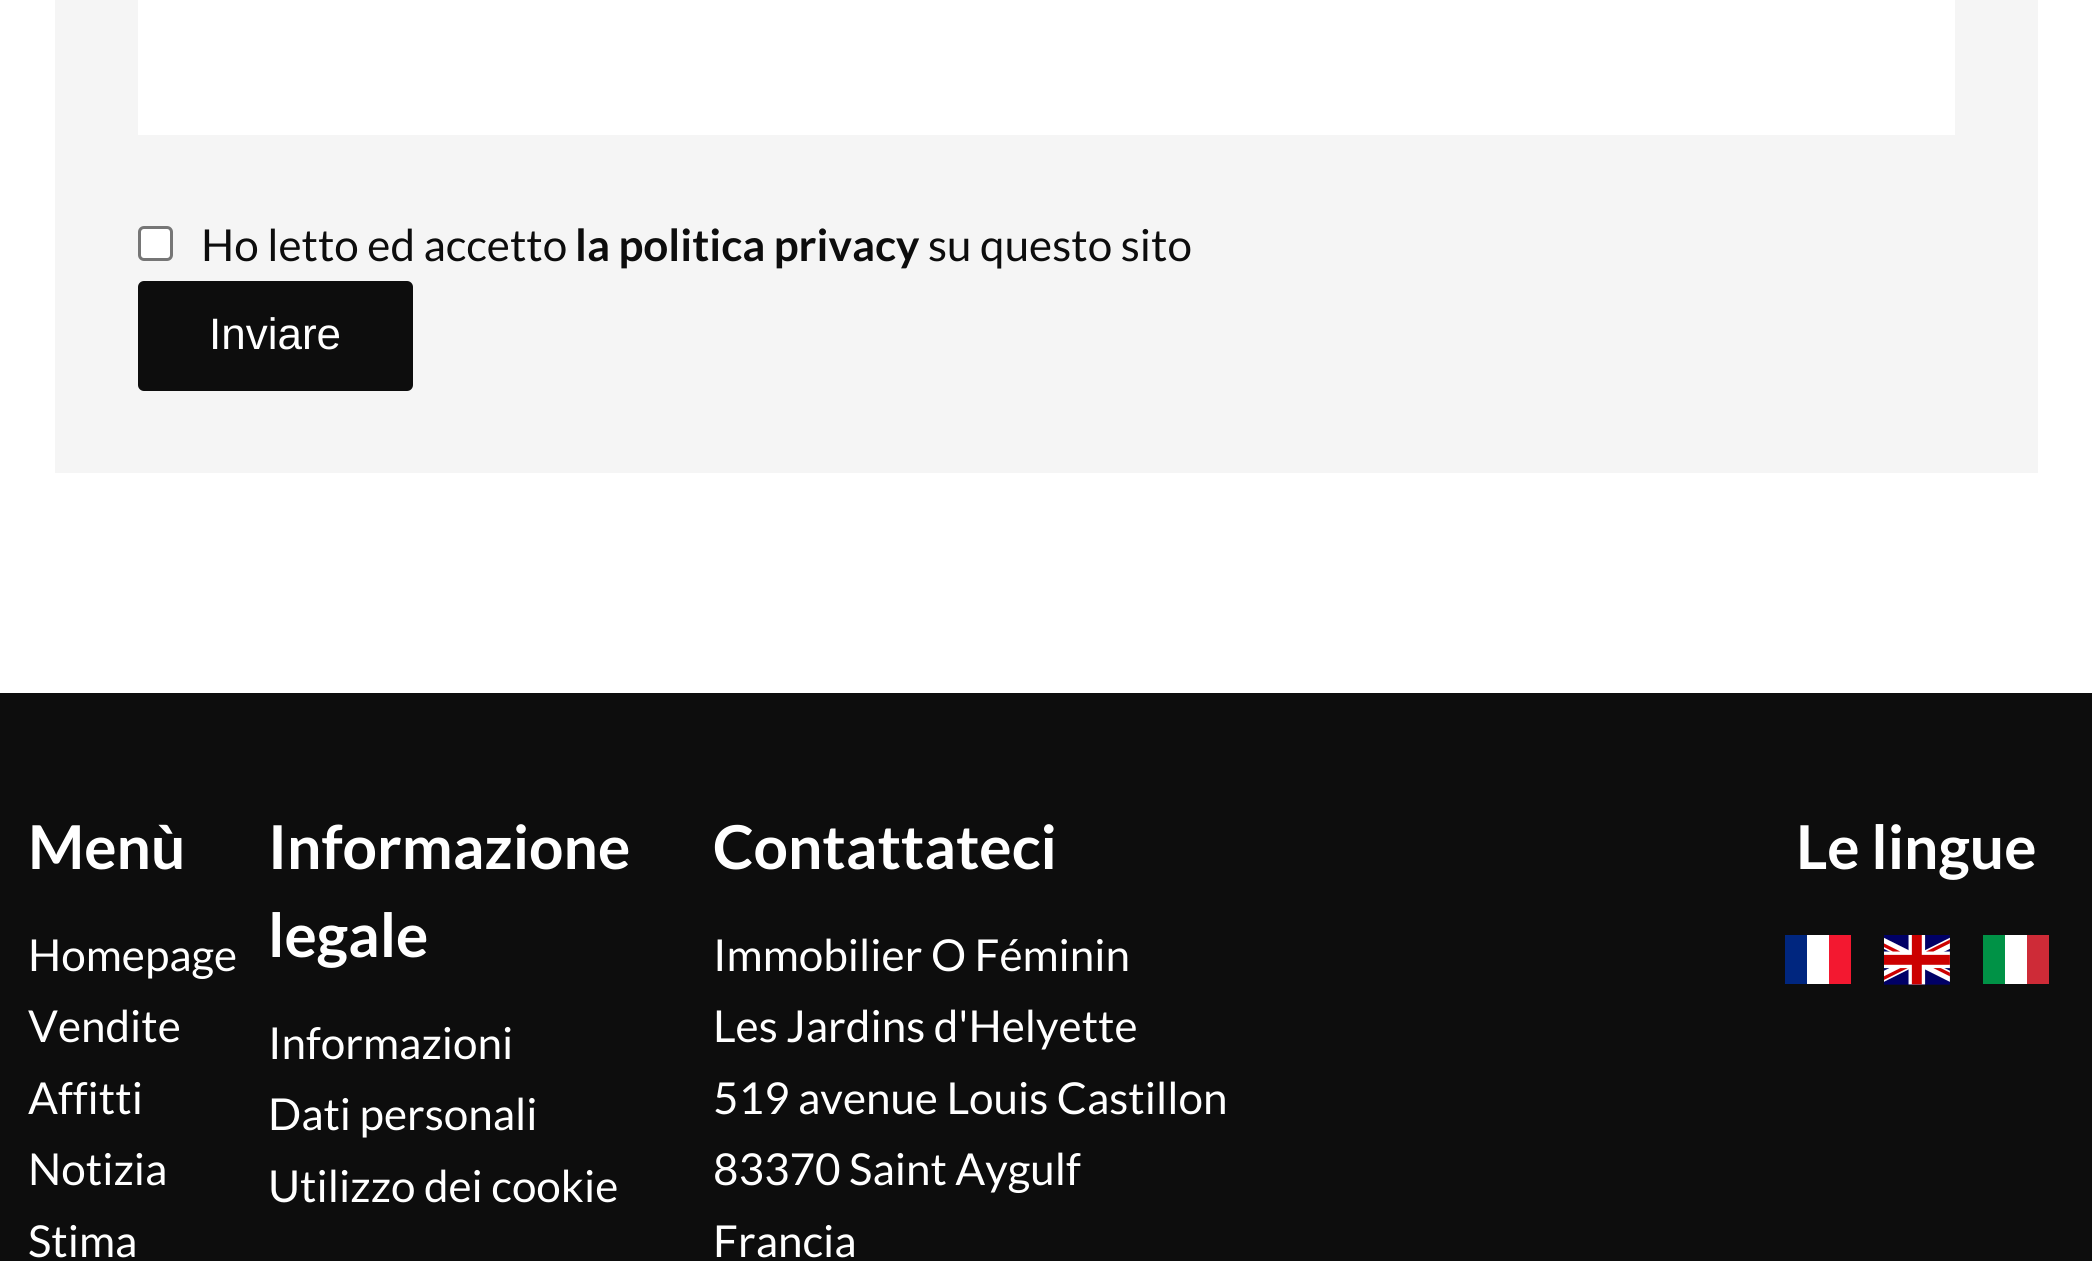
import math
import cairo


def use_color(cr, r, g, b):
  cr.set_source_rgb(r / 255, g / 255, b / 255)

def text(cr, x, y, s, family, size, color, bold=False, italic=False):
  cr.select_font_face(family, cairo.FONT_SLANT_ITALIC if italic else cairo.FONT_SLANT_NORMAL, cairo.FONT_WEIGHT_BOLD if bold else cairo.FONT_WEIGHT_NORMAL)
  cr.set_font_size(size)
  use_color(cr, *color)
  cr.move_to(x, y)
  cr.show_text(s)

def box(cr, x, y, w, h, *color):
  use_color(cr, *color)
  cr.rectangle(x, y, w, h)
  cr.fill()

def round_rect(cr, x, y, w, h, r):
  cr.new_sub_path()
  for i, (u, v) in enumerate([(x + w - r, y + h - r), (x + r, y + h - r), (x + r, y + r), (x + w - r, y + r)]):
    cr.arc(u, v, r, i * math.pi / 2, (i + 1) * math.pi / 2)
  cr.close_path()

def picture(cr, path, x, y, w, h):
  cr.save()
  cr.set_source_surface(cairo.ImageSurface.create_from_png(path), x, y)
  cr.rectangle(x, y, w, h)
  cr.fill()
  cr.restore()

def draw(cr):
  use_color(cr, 255, 255, 255)
  cr.paint()
  box(cr, 55, 0, 1983, 473, 245, 245, 245)
  box(cr, 138, 0, 1817, 135, 255, 255, 255)
  round_rect(cr, 139.5, 227.5, 32, 32, 4.5)
  cr.fill_preserve()
  use_color(cr, 118, 118, 118)
  cr.set_line_width(3)
  cr.stroke()
  use_color(cr, 13, 13, 13)
  round_rect(cr, 138, 281, 275, 110, 6)
  cr.fill()
  box(cr, 0, 693, 2092, 568, 13, 13, 13)
  box(cr, 1807, 935, 22, 49, 255, 255, 255)
  box(cr, 1785, 935, 22, 49, 0, 38, 127)
  box(cr, 1829, 935, 22, 49, 243, 24, 48)
  picture(cr, "img_01.png", 1884, 935, 66, 50)
  box(cr, 2005, 935, 22, 49, 255, 255, 255)
  box(cr, 1983, 935, 22, 49, 0, 146, 70)
  box(cr, 2027, 935, 22, 49, 206, 43, 55)
  text(cr, 201, 261, "Ho letto ed accetto", "Lato", 44, (13, 13, 13))
  text(cr, 575, 261, "la politica privacy", "Lato", 44, (13, 13, 13), bold=True)
  text(cr, 928, 261, "su questo sito", "Lato", 44, (13, 13, 13))
  text(cr, 209, 349, "Inviare", "Liberation Sans", 44, (255, 255, 255))
  text(cr, 28, 869, "Menù", "Lato", 60.5, (255, 255, 255), bold=True)
  text(cr, 28, 971, "Homepage", "Lato", 44, (255, 255, 255))
  text(cr, 28, 1042, "Vendite", "Lato", 44, (255, 255, 255))
  text(cr, 28, 1114, "Affitti", "Lato", 44, (255, 255, 255))
  text(cr, 28, 1185, "Notizia", "Lato", 44, (255, 255, 255))
  text(cr, 28, 1257, "Stima", "Lato", 44, (255, 255, 255))
  text(cr, 268, 869, "Informazione", "Lato", 60.5, (255, 255, 255), bold=True)
  text(cr, 268, 957, "legale", "Lato", 60.5, (255, 255, 255), bold=True)
  text(cr, 268, 1059, "Informazioni", "Lato", 44, (255, 255, 255))
  text(cr, 268, 1130, "Dati personali", "Lato", 44, (255, 255, 255))
  text(cr, 268, 1202, "Utilizzo dei cookie", "Lato", 44, (255, 255, 255))
  text(cr, 713, 869, "Contattateci", "Lato", 60.5, (255, 255, 255), bold=True)
  text(cr, 713, 971, "Immobilier O Féminin", "Lato", 44, (255, 255, 255))
  text(cr, 713, 1042, "Les Jardins d'Helyette", "Lato", 44, (255, 255, 255))
  text(cr, 713, 1114, "519 avenue Louis Castillon", "Lato", 44, (255, 255, 255))
  text(cr, 713, 1185, "83370 Saint Aygulf", "Lato", 44, (255, 255, 255))
  text(cr, 713, 1257, "Francia", "Lato", 44, (255, 255, 255))
  text(cr, 1796, 869, "Le lingue", "Lato", 60.5, (255, 255, 255), bold=True)


surface = cairo.ImageSurface(cairo.FORMAT_RGB24, 2092, 1261)
cr = cairo.Context(surface)
options = cairo.FontOptions()
options.set_hint_metrics(cairo.HINT_METRICS_OFF)
options.set_hint_style(cairo.HINT_STYLE_NONE)
cr.set_font_options(options)
cr.set_miter_limit(4)
draw(cr)
surface.write_to_png("out.png")
